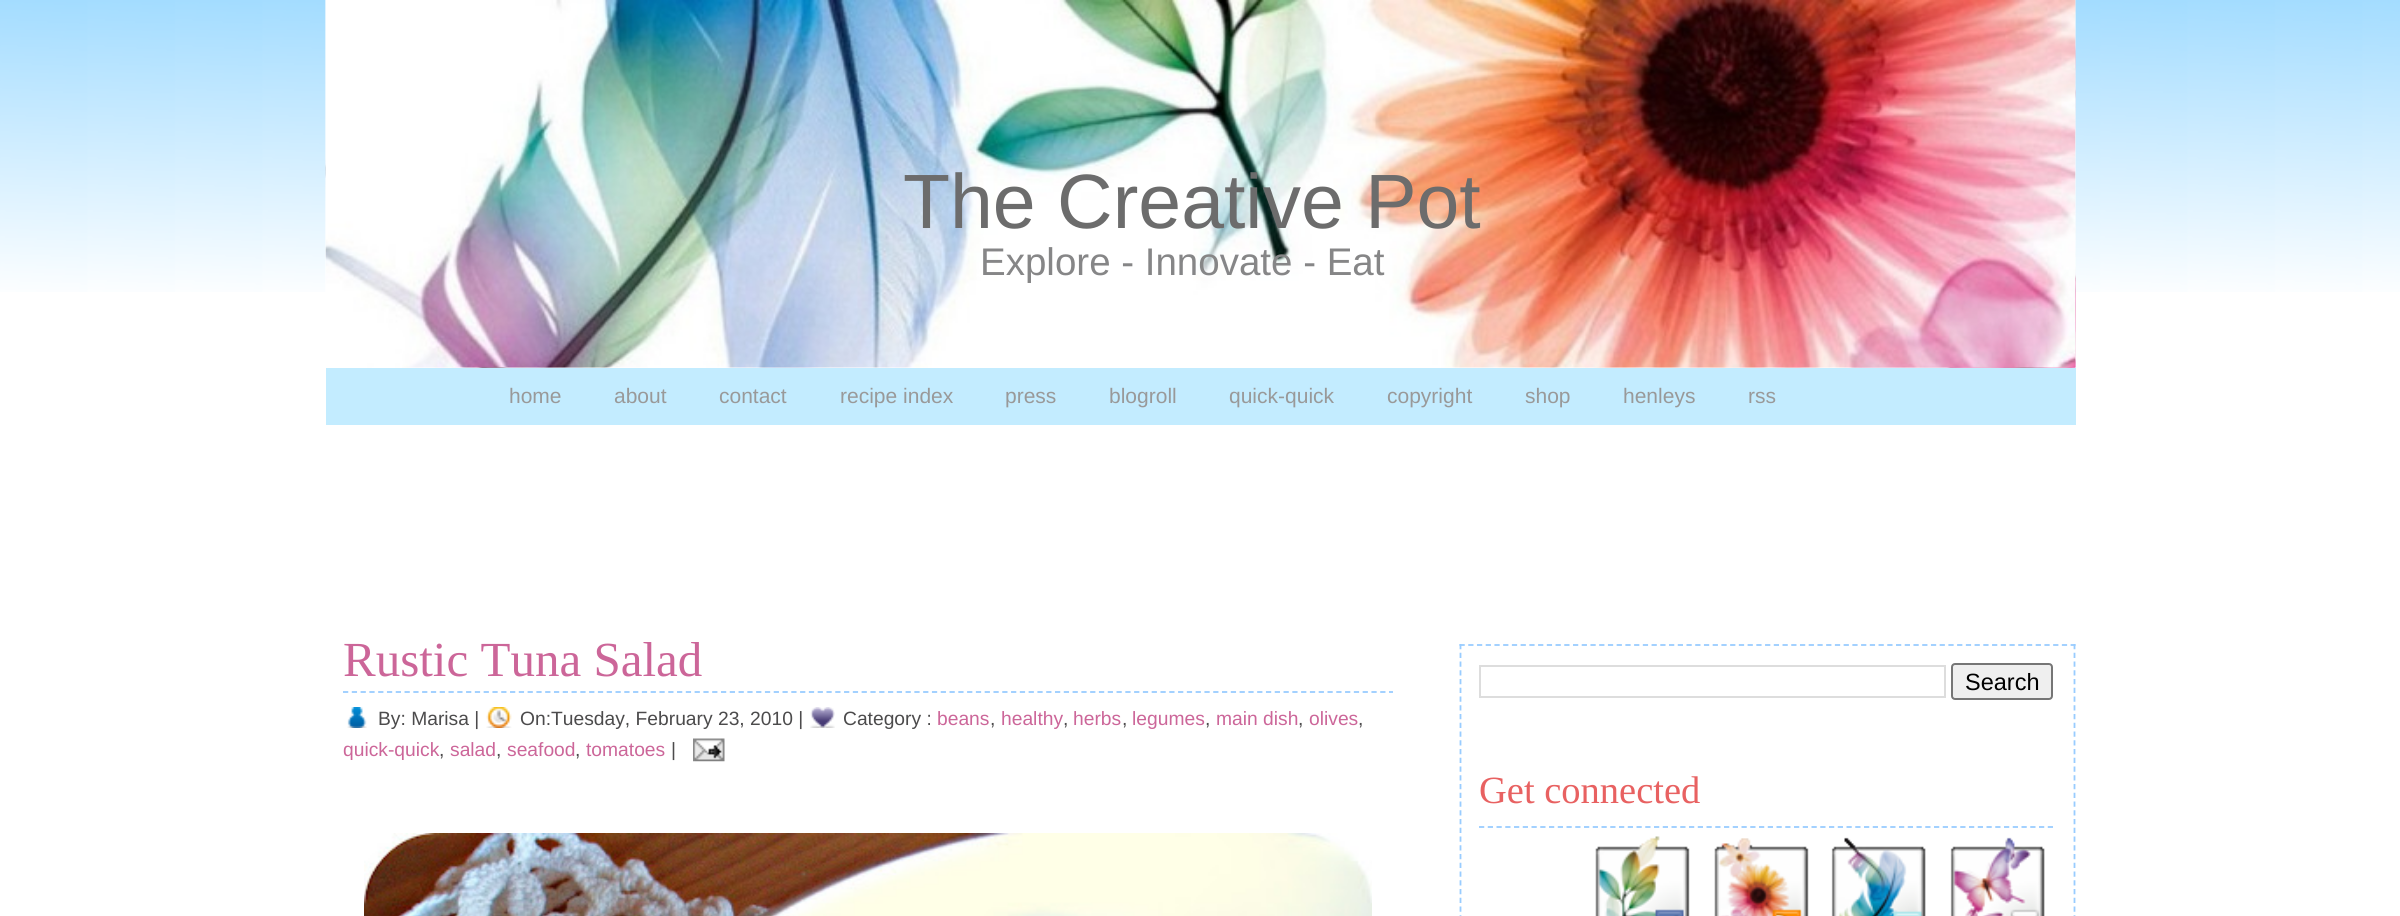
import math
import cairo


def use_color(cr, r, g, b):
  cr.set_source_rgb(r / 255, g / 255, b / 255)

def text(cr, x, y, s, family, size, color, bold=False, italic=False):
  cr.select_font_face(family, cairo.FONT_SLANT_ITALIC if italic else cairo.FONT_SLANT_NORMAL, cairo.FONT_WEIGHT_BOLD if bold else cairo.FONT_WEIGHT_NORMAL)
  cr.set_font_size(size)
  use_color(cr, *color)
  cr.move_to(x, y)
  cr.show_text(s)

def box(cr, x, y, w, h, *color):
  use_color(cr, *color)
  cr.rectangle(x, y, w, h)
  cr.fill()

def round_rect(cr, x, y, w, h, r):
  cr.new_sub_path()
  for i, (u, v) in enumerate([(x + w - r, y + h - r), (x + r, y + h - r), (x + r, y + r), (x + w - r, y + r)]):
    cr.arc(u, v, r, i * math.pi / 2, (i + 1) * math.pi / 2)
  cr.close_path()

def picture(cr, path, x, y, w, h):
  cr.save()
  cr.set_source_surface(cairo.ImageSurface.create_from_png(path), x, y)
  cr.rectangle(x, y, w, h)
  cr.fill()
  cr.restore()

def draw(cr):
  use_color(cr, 255, 255, 255)
  cr.paint()
  picture(cr, "img_01.png", 0, 0, 2400, 292)
  picture(cr, "img_02.png", 325, 0, 1751, 368)
  picture(cr, "img_03.png", 325, 0, 1751, 368)
  box(cr, 326, 368, 1750, 57, 195, 236, 255)
  cr.new_path()
  cr.move_to(343, 692)
  cr.line_to(1393, 692)
  use_color(cr, 153, 204, 255)
  cr.set_line_width(1.8)
  cr.set_dash([5.25, 3.54])
  cr.stroke()
  picture(cr, "img_04.png", 347, 707, 20, 21)
  picture(cr, "img_05.png", 486, 707, 26, 21)
  picture(cr, "img_06.png", 810, 707, 25, 21)
  picture(cr, "img_07.png", 693, 738, 32, 24)
  picture(cr, "img_08.png", 364, 833, 1008, 83)
  cr.new_path()
  cr.move_to(1459.5, 645)
  cr.line_to(2075.5, 645)
  cr.set_dash([5.25, 3.48])
  cr.stroke()
  cr.new_path()
  cr.move_to(2074.5, 644)
  cr.line_to(2074.5, 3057)
  cr.set_dash([5.25, 3.5])
  cr.stroke()
  cr.new_path()
  cr.move_to(1460.5, 644)
  cr.line_to(1460.5, 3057)
  cr.stroke()
  cr.rectangle(1480, 666, 465, 31)
  use_color(cr, 221, 221, 221)
  cr.set_line_width(2)
  cr.set_dash([])
  cr.stroke()
  use_color(cr, 239, 239, 239)
  round_rect(cr, 1952, 664, 100, 35, 3)
  cr.fill_preserve()
  use_color(cr, 118, 118, 118)
  cr.stroke()
  cr.new_path()
  cr.move_to(1479, 827)
  cr.line_to(2053, 827)
  use_color(cr, 153, 204, 255)
  cr.set_line_width(1.8)
  cr.set_dash([5.25, 3.5])
  cr.stroke()
  picture(cr, "img_09.png", 1595, 836, 95, 80)
  picture(cr, "img_10.png", 1714, 838, 95, 78)
  picture(cr, "img_11.png", 1831, 837, 95, 79)
  picture(cr, "img_12.png", 1950, 837, 95, 79)
  text(cr, 903, 228, "The Creative Pot", "Liberation Sans", 77, (108, 108, 108))
  text(cr, 980, 275, "Explore - Innovate - Eat", "Liberation Sans", 38.5, (134, 134, 135))
  text(cr, 509, 403, "home", "Liberation Sans", 21, (153, 153, 153))
  text(cr, 614, 403, "about", "Liberation Sans", 21, (153, 153, 153))
  text(cr, 719, 403, "contact", "Liberation Sans", 21, (153, 153, 153))
  text(cr, 840, 403, "recipe index", "Liberation Sans", 21, (153, 153, 153))
  text(cr, 1005, 403, "press", "Liberation Sans", 21, (153, 153, 153))
  text(cr, 1109, 403, "blogroll", "Liberation Sans", 21, (153, 153, 153))
  text(cr, 1229, 403, "quick-quick", "Liberation Sans", 21, (153, 153, 153))
  text(cr, 1387, 403, "copyright", "Liberation Sans", 21, (153, 153, 153))
  text(cr, 1525, 403, "shop", "Liberation Sans", 21, (153, 153, 153))
  text(cr, 1623, 403, "henleys", "Liberation Sans", 21, (153, 153, 153))
  text(cr, 1748, 403, "rss", "Liberation Sans", 21, (153, 153, 153))
  text(cr, 343, 676, "Rustic Tuna Salad", "Liberation Serif", 49, (204, 102, 153))
  text(cr, 378, 725, "By: Marisa |", "Liberation Sans", 19.25, (76, 75, 76))
  text(cr, 520, 725, "On:Tuesday, February 23, 2010 |", "Liberation Sans", 19.25, (76, 75, 76))
  text(cr, 843, 725, "Category :", "Liberation Sans", 19.25, (76, 75, 76))
  text(cr, 937, 725, "beans", "Liberation Sans", 19.25, (204, 102, 153))
  text(cr, 990, 725, ",", "Liberation Sans", 19.25, (76, 75, 76))
  text(cr, 1001, 725, "healthy", "Liberation Sans", 19.25, (204, 102, 153))
  text(cr, 1063, 725, ",", "Liberation Sans", 19.25, (76, 75, 76))
  text(cr, 1073, 725, "herbs", "Liberation Sans", 19.25, (204, 102, 153))
  text(cr, 1122, 725, ",", "Liberation Sans", 19.25, (76, 75, 76))
  text(cr, 1132, 725, "legumes", "Liberation Sans", 19.25, (204, 102, 153))
  text(cr, 1205, 725, ",", "Liberation Sans", 19.25, (76, 75, 76))
  text(cr, 1216, 725, "main dish", "Liberation Sans", 19.25, (204, 102, 153))
  text(cr, 1298, 725, ",", "Liberation Sans", 19.25, (76, 75, 76))
  text(cr, 1309, 725, "olives", "Liberation Sans", 19.25, (204, 102, 153))
  text(cr, 1358, 725, ",", "Liberation Sans", 19.25, (76, 75, 76))
  text(cr, 343, 756, "quick-quick", "Liberation Sans", 19.25, (204, 102, 153))
  text(cr, 439, 756, ",", "Liberation Sans", 19.25, (76, 75, 76))
  text(cr, 450, 756, "salad", "Liberation Sans", 19.25, (204, 102, 153))
  text(cr, 496, 756, ",", "Liberation Sans", 19.25, (76, 75, 76))
  text(cr, 507, 756, "seafood", "Liberation Sans", 19.25, (204, 102, 153))
  text(cr, 575, 756, ",", "Liberation Sans", 19.25, (76, 75, 76))
  text(cr, 586, 756, "tomatoes", "Liberation Sans", 19.25, (204, 102, 153))
  text(cr, 671, 756, "|", "Liberation Sans", 19.25, (76, 75, 76))
  text(cr, 1965, 690, "Search", "Liberation Sans", 23.5, (0, 0, 0))
  text(cr, 1479, 803, "Get connected", "Liberation Serif", 38.5, (232, 97, 97))


surface = cairo.ImageSurface(cairo.FORMAT_RGB24, 2400, 916)
cr = cairo.Context(surface)
options = cairo.FontOptions()
options.set_hint_metrics(cairo.HINT_METRICS_OFF)
options.set_hint_style(cairo.HINT_STYLE_NONE)
cr.set_font_options(options)
cr.set_miter_limit(4)
draw(cr)
surface.write_to_png("out.png")
